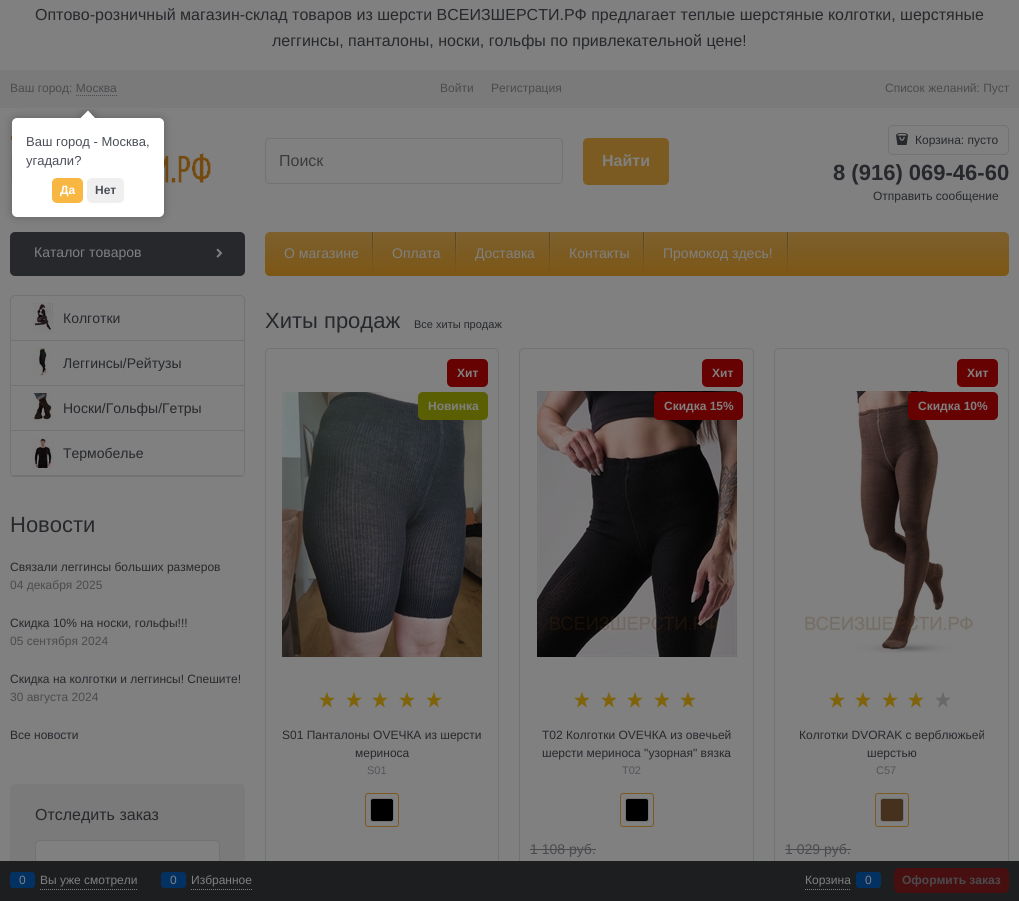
import math
import cairo


def use_color(cr, r, g, b):
  cr.set_source_rgb(r / 255, g / 255, b / 255)

def text(cr, x, y, s, family, size, color, bold=False, italic=False):
  cr.select_font_face(family, cairo.FONT_SLANT_ITALIC if italic else cairo.FONT_SLANT_NORMAL, cairo.FONT_WEIGHT_BOLD if bold else cairo.FONT_WEIGHT_NORMAL)
  cr.set_font_size(size)
  use_color(cr, *color)
  cr.move_to(x, y)
  cr.show_text(s)

def box(cr, x, y, w, h, *color):
  use_color(cr, *color)
  cr.rectangle(x, y, w, h)
  cr.fill()

def round_rect(cr, x, y, w, h, r):
  cr.new_sub_path()
  for i, (u, v) in enumerate([(x + w - r, y + h - r), (x + r, y + h - r), (x + r, y + r), (x + w - r, y + r)]):
    cr.arc(u, v, r, i * math.pi / 2, (i + 1) * math.pi / 2)
  cr.close_path()

def shadow(cr, x, y, w, h, r, blur, alpha):
  cr.push_group_with_content(cairo.CONTENT_ALPHA)
  cr.set_operator(cairo.OPERATOR_SOURCE)
  for i in range(15, -16, -2):
    e = blur * i / 6
    if min(w, h) + 2 * e > 0:
      cr.set_source_rgba(0, 0, 0, alpha * math.erfc((i - 1) / 8.5) / 2)
      round_rect(cr, x - e, y - e, w + 2 * e, h + 2 * e, max(0, min(r + e + blur * .6, min(w, h) / 2 + e)))
      cr.fill()
  cr.mask(cr.pop_group())

def picture(cr, path, x, y, w, h):
  cr.save()
  cr.set_source_surface(cairo.ImageSurface.create_from_png(path), x, y)
  cr.rectangle(x, y, w, h)
  cr.fill()
  cr.restore()

def draw(cr):
  use_color(cr, 128, 128, 128)
  cr.paint()
  box(cr, 0, 70, 1019, 38, 122, 122, 122)
  cr.new_path()
  cr.move_to(76, 95.5)
  cr.line_to(117, 95.5)
  use_color(cr, 74, 75, 78)
  cr.set_line_width(1)
  cr.set_dash([1, 1])
  cr.stroke()
  picture(cr, "img_01.png", 10, 136, 201, 47)
  round_rect(cr, 265.5, 138.5, 297, 45, 4.5)
  use_color(cr, 113, 114, 114)
  cr.set_dash([])
  cr.stroke()
  use_color(cr, 124, 91, 34)
  round_rect(cr, 583, 138, 86, 47, 5)
  cr.fill()
  round_rect(cr, 888.5, 125.5, 120, 29, 4.5)
  use_color(cr, 113, 114, 114)
  cr.stroke()
  picture(cr, "img_02.png", 896, 133, 12, 12)
  use_color(cr, 38, 40, 44)
  round_rect(cr, 10, 232, 235, 44, 5)
  cr.fill()
  picture(cr, "img_03.png", 216, 248, 7, 10)
  gradient = cairo.LinearGradient(637, 232, 637, 276)
  gradient.add_color_stop_rgba(0, 0.49, 0.376, 0.18, 1)
  gradient.add_color_stop_rgba(0.5, 0.486, 0.357, 0.133, 1)
  gradient.add_color_stop_rgba(1, 0.486, 0.337, 0.082, 1)
  cr.set_source(gradient)
  round_rect(cr, 265, 232, 744, 44, 5)
  cr.fill()
  gradient = cairo.LinearGradient(374, 232, 374, 276)
  gradient.add_color_stop_rgba(0, 0.502, 0.502, 0.502, 0.14)
  gradient.add_color_stop_rgba(0.72, 0.502, 0.502, 0.502, 0.02)
  gradient.add_color_stop_rgba(1, 0.502, 0.502, 0.502, 0)
  cr.set_source(gradient)
  cr.rectangle(373, 232, 1, 31)
  cr.fill()
  gradient = cairo.LinearGradient(373, 232, 373, 276)
  gradient.add_color_stop_rgba(0, 0.114, 0.114, 0.114, 0.39)
  gradient.add_color_stop_rgba(0.17, 0.114, 0.114, 0.114, 0.33)
  gradient.add_color_stop_rgba(0.61, 0.114, 0.114, 0.114, 0.12)
  gradient.add_color_stop_rgba(0.96, 0.114, 0.114, 0.114, 0.01)
  gradient.add_color_stop_rgba(0.98, 0.502, 0.502, 0.502, 0.01)
  gradient.add_color_stop_rgba(1, 0.502, 0.502, 0.502, 0)
  cr.set_source(gradient)
  cr.rectangle(372, 232, 1, 44)
  cr.fill()
  gradient = cairo.LinearGradient(457, 232, 457, 276)
  gradient.add_color_stop_rgba(0, 0.502, 0.502, 0.502, 0.14)
  gradient.add_color_stop_rgba(0.72, 0.502, 0.502, 0.502, 0.02)
  gradient.add_color_stop_rgba(1, 0.502, 0.502, 0.502, 0)
  cr.set_source(gradient)
  cr.rectangle(456, 232, 1, 31)
  cr.fill()
  gradient = cairo.LinearGradient(456, 232, 456, 276)
  gradient.add_color_stop_rgba(0, 0.114, 0.114, 0.114, 0.39)
  gradient.add_color_stop_rgba(0.17, 0.114, 0.114, 0.114, 0.33)
  gradient.add_color_stop_rgba(0.61, 0.114, 0.114, 0.114, 0.12)
  gradient.add_color_stop_rgba(0.96, 0.114, 0.114, 0.114, 0.01)
  gradient.add_color_stop_rgba(0.98, 0.502, 0.502, 0.502, 0.01)
  gradient.add_color_stop_rgba(1, 0.502, 0.502, 0.502, 0)
  cr.set_source(gradient)
  cr.rectangle(455, 232, 1, 44)
  cr.fill()
  gradient = cairo.LinearGradient(551, 232, 551, 276)
  gradient.add_color_stop_rgba(0, 0.502, 0.502, 0.502, 0.14)
  gradient.add_color_stop_rgba(0.72, 0.502, 0.502, 0.502, 0.02)
  gradient.add_color_stop_rgba(1, 0.502, 0.502, 0.502, 0)
  cr.set_source(gradient)
  cr.rectangle(550, 232, 1, 31)
  cr.fill()
  gradient = cairo.LinearGradient(550, 232, 550, 276)
  gradient.add_color_stop_rgba(0, 0.114, 0.114, 0.114, 0.39)
  gradient.add_color_stop_rgba(0.17, 0.114, 0.114, 0.114, 0.33)
  gradient.add_color_stop_rgba(0.61, 0.114, 0.114, 0.114, 0.12)
  gradient.add_color_stop_rgba(0.96, 0.114, 0.114, 0.114, 0.01)
  gradient.add_color_stop_rgba(0.98, 0.502, 0.502, 0.502, 0.01)
  gradient.add_color_stop_rgba(1, 0.502, 0.502, 0.502, 0)
  cr.set_source(gradient)
  cr.rectangle(549, 232, 1, 44)
  cr.fill()
  gradient = cairo.LinearGradient(645, 232, 645, 276)
  gradient.add_color_stop_rgba(0, 0.502, 0.502, 0.502, 0.14)
  gradient.add_color_stop_rgba(0.72, 0.502, 0.502, 0.502, 0.02)
  gradient.add_color_stop_rgba(1, 0.502, 0.502, 0.502, 0)
  cr.set_source(gradient)
  cr.rectangle(644, 232, 1, 31)
  cr.fill()
  gradient = cairo.LinearGradient(644, 232, 644, 276)
  gradient.add_color_stop_rgba(0, 0.114, 0.114, 0.114, 0.39)
  gradient.add_color_stop_rgba(0.17, 0.114, 0.114, 0.114, 0.33)
  gradient.add_color_stop_rgba(0.61, 0.114, 0.114, 0.114, 0.12)
  gradient.add_color_stop_rgba(0.96, 0.114, 0.114, 0.114, 0.01)
  gradient.add_color_stop_rgba(0.98, 0.502, 0.502, 0.502, 0.01)
  gradient.add_color_stop_rgba(1, 0.502, 0.502, 0.502, 0)
  cr.set_source(gradient)
  cr.rectangle(643, 232, 1, 44)
  cr.fill()
  gradient = cairo.LinearGradient(789, 232, 789, 276)
  gradient.add_color_stop_rgba(0, 0.502, 0.502, 0.502, 0.14)
  gradient.add_color_stop_rgba(0.72, 0.502, 0.502, 0.502, 0.02)
  gradient.add_color_stop_rgba(1, 0.502, 0.502, 0.502, 0)
  cr.set_source(gradient)
  cr.rectangle(788, 232, 1, 31)
  cr.fill()
  gradient = cairo.LinearGradient(788, 232, 788, 276)
  gradient.add_color_stop_rgba(0, 0.114, 0.114, 0.114, 0.39)
  gradient.add_color_stop_rgba(0.17, 0.114, 0.114, 0.114, 0.33)
  gradient.add_color_stop_rgba(0.61, 0.114, 0.114, 0.114, 0.12)
  gradient.add_color_stop_rgba(0.96, 0.114, 0.114, 0.114, 0.01)
  gradient.add_color_stop_rgba(0.98, 0.502, 0.502, 0.502, 0.01)
  gradient.add_color_stop_rgba(1, 0.502, 0.502, 0.502, 0)
  cr.set_source(gradient)
  cr.rectangle(787, 232, 1, 44)
  cr.fill()
  round_rect(cr, 10.5, 295.5, 234, 181, 4.5)
  use_color(cr, 113, 114, 114)
  cr.stroke()
  box(cr, 11, 340, 233, 1, 113, 114, 114)
  picture(cr, "img_04.png", 33, 303, 20, 30)
  box(cr, 11, 385, 233, 1, 113, 114, 114)
  picture(cr, "img_05.png", 33, 348, 16, 29)
  box(cr, 11, 430, 233, 1, 113, 114, 114)
  picture(cr, "img_06.png", 33, 393, 20, 30)
  box(cr, 11, 475, 233, 1, 113, 114, 114)
  box(cr, 11, 473, 233, 2, 128, 128, 128)
  picture(cr, "img_07.png", 32, 438, 22, 30)
  use_color(cr, 122, 122, 122)
  round_rect(cr, 10, 784, 235, 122, 5)
  cr.fill()
  use_color(cr, 128, 128, 128)
  round_rect(cr, 35.5, 840.5, 184, 39, 4.5)
  cr.fill_preserve()
  use_color(cr, 113, 114, 114)
  cr.stroke()
  round_rect(cr, 265.5, 348.5, 233, 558, 4.5)
  cr.stroke()
  use_color(cr, 103, 2, 2)
  round_rect(cr, 447, 359, 41, 28, 5)
  cr.fill()
  picture(cr, "img_08.png", 282, 392, 200, 265)
  use_color(cr, 90, 95, 4)
  round_rect(cr, 418, 392, 70, 28, 5)
  cr.fill()
  picture(cr, "img_09.png", 319, 692, 16, 16)
  picture(cr, "img_09.png", 346, 692, 16, 16)
  picture(cr, "img_09.png", 372, 692, 16, 16)
  picture(cr, "img_09.png", 399, 692, 16, 16)
  picture(cr, "img_09.png", 426, 692, 16, 16)
  round_rect(cr, 365.5, 793.5, 33, 33, 2.5)
  use_color(cr, 124, 91, 34)
  cr.stroke()
  use_color(cr, 0, 0, 0)
  round_rect(cr, 370.5, 798.5, 23, 23, 2.5)
  cr.fill_preserve()
  use_color(cr, 113, 114, 114)
  cr.stroke()
  round_rect(cr, 519.5, 348.5, 234, 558, 4.5)
  cr.stroke()
  use_color(cr, 103, 2, 2)
  round_rect(cr, 702, 359, 41, 28, 5)
  cr.fill()
  picture(cr, "img_10.png", 537, 391, 200, 266)
  round_rect(cr, 654, 392, 89, 28, 5)
  cr.fill()
  picture(cr, "img_09.png", 574, 692, 16, 16)
  picture(cr, "img_09.png", 601, 692, 16, 16)
  picture(cr, "img_09.png", 627, 692, 16, 16)
  picture(cr, "img_09.png", 654, 692, 16, 16)
  picture(cr, "img_09.png", 680, 692, 16, 16)
  round_rect(cr, 620.5, 793.5, 33, 33, 2.5)
  use_color(cr, 124, 91, 34)
  cr.stroke()
  use_color(cr, 0, 0, 0)
  round_rect(cr, 625.5, 798.5, 23, 23, 2.5)
  cr.fill_preserve()
  use_color(cr, 113, 114, 114)
  cr.stroke()
  box(cr, 530, 849, 66, 1, 74, 75, 78)
  round_rect(cr, 774.5, 348.5, 234, 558, 4.5)
  use_color(cr, 113, 114, 114)
  cr.stroke()
  use_color(cr, 103, 2, 2)
  round_rect(cr, 957, 359, 41, 28, 5)
  cr.fill()
  picture(cr, "img_11.png", 804, 391, 170, 262)
  round_rect(cr, 908, 392, 90, 28, 5)
  cr.fill()
  picture(cr, "img_09.png", 829, 692, 16, 16)
  picture(cr, "img_09.png", 855, 692, 16, 16)
  picture(cr, "img_09.png", 882, 692, 16, 16)
  picture(cr, "img_09.png", 908, 692, 16, 16)
  picture(cr, "img_12.png", 935, 692, 16, 16)
  round_rect(cr, 875.5, 793.5, 33, 33, 2.5)
  use_color(cr, 124, 91, 34)
  cr.stroke()
  use_color(cr, 70, 49, 30)
  round_rect(cr, 880.5, 798.5, 23, 23, 2.5)
  cr.fill_preserve()
  use_color(cr, 113, 114, 114)
  cr.stroke()
  box(cr, 785, 849, 66, 1, 74, 75, 78)
  box(cr, 0, 861, 1019, 40, 28, 30, 32)
  cr.new_path()
  cr.move_to(40, 889.5)
  cr.line_to(137, 889.5)
  use_color(cr, 128, 128, 128)
  cr.set_dash([1, 1])
  cr.stroke()
  use_color(cr, 3, 49, 97)
  round_rect(cr, 10, 872, 25, 16, 3)
  cr.fill()
  cr.new_path()
  cr.move_to(191, 889.5)
  cr.line_to(252, 889.5)
  use_color(cr, 128, 128, 128)
  cr.stroke()
  use_color(cr, 3, 49, 97)
  round_rect(cr, 161, 872, 25, 16, 3)
  cr.fill()
  cr.new_path()
  cr.move_to(805, 889.5)
  cr.line_to(851, 889.5)
  use_color(cr, 128, 128, 128)
  cr.stroke()
  use_color(cr, 3, 49, 97)
  round_rect(cr, 856, 872, 25, 16, 3)
  cr.fill()
  use_color(cr, 71, 15, 16)
  round_rect(cr, 894, 868, 115, 25, 5)
  cr.fill()
  use_color(cr, 0, 0, 0)
  shadow(cr, 12, 118, 152, 99, 5, 4.5, 0.25)
  use_color(cr, 255, 255, 255)
  round_rect(cr, 12, 118, 152, 99, 5)
  cr.fill()
  cr.save()
  cr.rectangle(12, 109, 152, 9)
  cr.clip()
  use_color(cr, 0, 0, 0)
  shadow(cr, 83, 113, 10, 10, 0, 4.5, 0.25)
  cr.restore()
  cr.save()
  cr.rectangle(12, 109, 152, 9)
  cr.clip()
  cr.new_path()
  cr.move_to(88, 110.5)
  cr.line_to(95, 118)
  cr.line_to(88, 125)
  cr.line_to(80.5, 118)
  cr.close_path()
  cr.fill()
  cr.restore()
  use_color(cr, 248, 182, 67)
  round_rect(cr, 52, 178, 31, 25, 5)
  cr.fill()
  use_color(cr, 239, 239, 239)
  round_rect(cr, 87, 178, 37, 25, 5)
  cr.fill()
  text(cr, 35, 20, "Оптово-розничный магазин-склад товаров из шерсти ВСЕИЗШЕРСТИ.РФ предлагает теплые шерстяные колготки, шерстяные", "Liberation Sans", 16, (38, 40, 44))
  text(cr, 272, 46, "леггинсы, панталоны, носки, гольфы по привлекательной цене!", "Liberation Sans", 16, (38, 40, 44))
  text(cr, 10, 92, "Ваш город: Москва", "Liberation Sans", 12, (74, 75, 78))
  text(cr, 440, 92, "Войти", "Liberation Sans", 12, (74, 75, 78))
  text(cr, 491, 92, "Регистрация", "Liberation Sans", 12, (74, 75, 78))
  text(cr, 885, 92, "Список желаний: Пуст", "Liberation Sans", 12, (74, 75, 78))
  text(cr, 279, 166, "Поиск", "Liberation Sans", 16, (59, 59, 59))
  text(cr, 602, 166, "Найти", "Liberation Sans", 16, (128, 128, 128), bold=True)
  text(cr, 915, 144, "Корзина: пусто", "Liberation Sans", 12, (38, 40, 44))
  text(cr, 833, 180, "8 (916) 069-46-60", "Liberation Sans", 22, (38, 40, 44), bold=True)
  text(cr, 873, 200, "Отправить сообщение", "Liberation Sans", 12, (38, 40, 44))
  text(cr, 34, 257, "Каталог товаров", "Liberation Sans", 14, (128, 128, 128))
  text(cr, 284, 258, "О магазине", "Liberation Sans", 14, (128, 128, 128))
  text(cr, 392, 258, "Оплата", "Liberation Sans", 14, (128, 128, 128))
  text(cr, 475, 258, "Доставка", "Liberation Sans", 14, (128, 128, 128))
  text(cr, 569, 258, "Контакты", "Liberation Sans", 14, (128, 128, 128))
  text(cr, 663, 258, "Промокод здесь!", "Liberation Sans", 14, (128, 128, 128))
  text(cr, 63, 323, "Колготки", "Liberation Sans", 14, (38, 40, 44))
  text(cr, 63, 368, "Леггинсы/Рейтузы", "Liberation Sans", 14, (38, 40, 44))
  text(cr, 63, 413, "Носки/Гольфы/Гетры", "Liberation Sans", 14, (38, 40, 44))
  text(cr, 63, 458, "Термобелье", "Liberation Sans", 14, (38, 40, 44))
  text(cr, 10, 532, "Новости", "Liberation Sans", 22, (38, 40, 44))
  text(cr, 10, 571, "Связали леггинсы больших размеров", "Liberation Sans", 12, (38, 40, 44))
  text(cr, 10, 589, "04 декабря 2025", "Liberation Sans", 12, (74, 75, 78))
  text(cr, 10, 627, "Скидка 10% на носки, гольфы!!!", "Liberation Sans", 12, (38, 40, 44))
  text(cr, 10, 645, "05 сентября 2024", "Liberation Sans", 12, (74, 75, 78))
  text(cr, 10, 683, "Скидка на колготки и леггинсы! Спешите!", "Liberation Sans", 12, (38, 40, 44))
  text(cr, 10, 701, "30 августа 2024", "Liberation Sans", 12, (74, 75, 78))
  text(cr, 10, 739, "Все новости", "Liberation Sans", 12, (38, 40, 44))
  text(cr, 35, 820, "Отследить заказ", "Liberation Sans", 16, (38, 40, 44))
  text(cr, 265, 328, "Хиты продаж", "Liberation Sans", 22, (38, 40, 44))
  text(cr, 414, 328, "Все хиты продаж", "Liberation Sans", 11, (38, 40, 44))
  text(cr, 457, 377, "Хит", "Liberation Sans", 12, (128, 128, 128), bold=True)
  text(cr, 428, 410, "Новинка", "Liberation Sans", 12, (128, 128, 128), bold=True)
  text(cr, 282, 739, "S01 Панталоны ОVЕЧКА из шерсти", "Liberation Sans", 12, (38, 40, 44))
  text(cr, 355, 757, "мериноса", "Liberation Sans", 12, (38, 40, 44))
  text(cr, 367, 774, "S01", "Liberation Sans", 11, (83, 84, 88))
  text(cr, 712, 377, "Хит", "Liberation Sans", 12, (128, 128, 128), bold=True)
  text(cr, 664, 410, "Скидка 15%", "Liberation Sans", 12, (128, 128, 128), bold=True)
  text(cr, 542, 739, "Т02 Колготки ОVЕЧКА из овечьей", "Liberation Sans", 12, (38, 40, 44))
  text(cr, 542, 757, "шерсти мериноса \"узорная\" вязка", "Liberation Sans", 12, (38, 40, 44))
  text(cr, 622, 774, "T02", "Liberation Sans", 11, (83, 84, 88))
  text(cr, 530, 854, "1 108 руб.", "Liberation Sans", 14, (74, 75, 78))
  text(cr, 967, 377, "Хит", "Liberation Sans", 12, (128, 128, 128), bold=True)
  text(cr, 918, 410, "Скидка 10%", "Liberation Sans", 12, (128, 128, 128), bold=True)
  text(cr, 799, 739, "Колготки DVORAK c верблюжьей", "Liberation Sans", 12, (38, 40, 44))
  text(cr, 867, 757, "шерстью", "Liberation Sans", 12, (38, 40, 44))
  text(cr, 876, 774, "С57", "Liberation Sans", 11, (83, 84, 88))
  text(cr, 785, 854, "1 029 руб.", "Liberation Sans", 14, (74, 75, 78))
  text(cr, 19, 884, "0", "Liberation Sans", 12, (128, 128, 128))
  text(cr, 40, 884, "Вы уже смотрели", "Liberation Sans", 12, (128, 128, 128))
  text(cr, 170, 884, "0", "Liberation Sans", 12, (128, 128, 128))
  text(cr, 191, 884, "Избранное", "Liberation Sans", 12, (128, 128, 128))
  text(cr, 805, 884, "Корзина", "Liberation Sans", 12, (128, 128, 128))
  text(cr, 865, 884, "0", "Liberation Sans", 12, (128, 128, 128))
  text(cr, 902, 884, "Оформить заказ", "Liberation Sans", 12, (74, 75, 78), bold=True)
  text(cr, 26, 146, "Ваш город - Москва,", "Liberation Sans", 13, (75, 79, 88))
  text(cr, 26, 165, "угадали?", "Liberation Sans", 13, (75, 79, 88))
  text(cr, 60, 194, "Да", "Liberation Sans", 12, (255, 255, 255), bold=True)
  text(cr, 95, 194, "Нет", "Liberation Sans", 12, (75, 79, 88), bold=True)


surface = cairo.ImageSurface(cairo.FORMAT_RGB24, 1019, 901)
cr = cairo.Context(surface)
options = cairo.FontOptions()
options.set_hint_metrics(cairo.HINT_METRICS_OFF)
options.set_hint_style(cairo.HINT_STYLE_NONE)
cr.set_font_options(options)
cr.set_miter_limit(4)
draw(cr)
surface.write_to_png("out.png")
